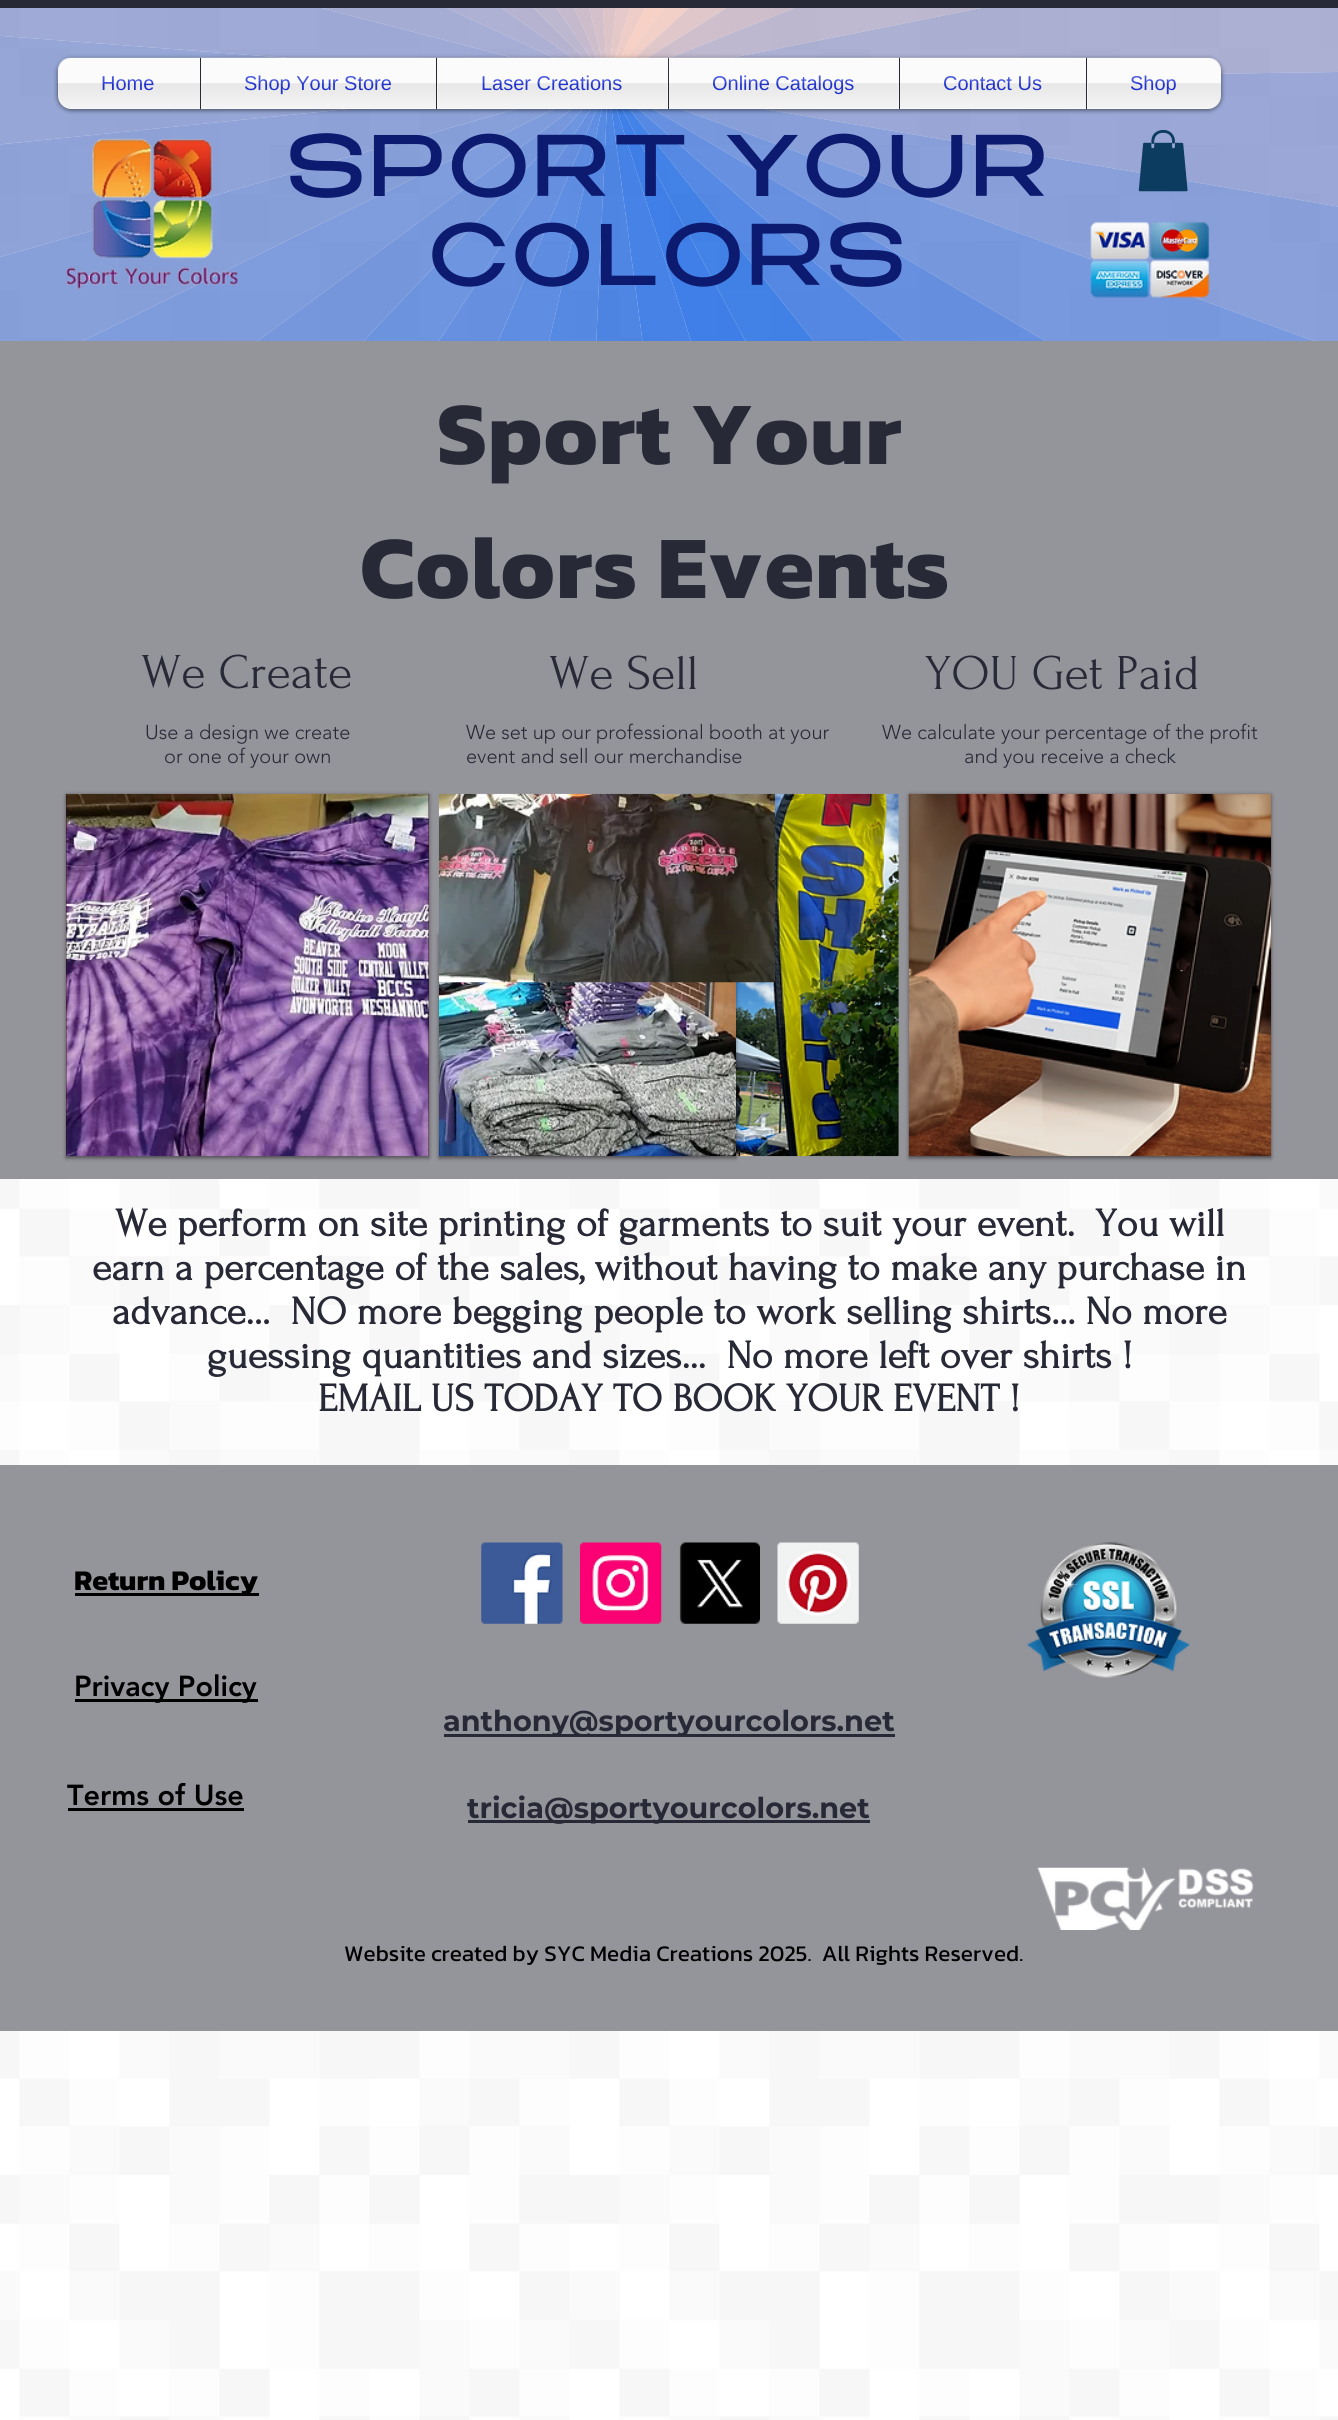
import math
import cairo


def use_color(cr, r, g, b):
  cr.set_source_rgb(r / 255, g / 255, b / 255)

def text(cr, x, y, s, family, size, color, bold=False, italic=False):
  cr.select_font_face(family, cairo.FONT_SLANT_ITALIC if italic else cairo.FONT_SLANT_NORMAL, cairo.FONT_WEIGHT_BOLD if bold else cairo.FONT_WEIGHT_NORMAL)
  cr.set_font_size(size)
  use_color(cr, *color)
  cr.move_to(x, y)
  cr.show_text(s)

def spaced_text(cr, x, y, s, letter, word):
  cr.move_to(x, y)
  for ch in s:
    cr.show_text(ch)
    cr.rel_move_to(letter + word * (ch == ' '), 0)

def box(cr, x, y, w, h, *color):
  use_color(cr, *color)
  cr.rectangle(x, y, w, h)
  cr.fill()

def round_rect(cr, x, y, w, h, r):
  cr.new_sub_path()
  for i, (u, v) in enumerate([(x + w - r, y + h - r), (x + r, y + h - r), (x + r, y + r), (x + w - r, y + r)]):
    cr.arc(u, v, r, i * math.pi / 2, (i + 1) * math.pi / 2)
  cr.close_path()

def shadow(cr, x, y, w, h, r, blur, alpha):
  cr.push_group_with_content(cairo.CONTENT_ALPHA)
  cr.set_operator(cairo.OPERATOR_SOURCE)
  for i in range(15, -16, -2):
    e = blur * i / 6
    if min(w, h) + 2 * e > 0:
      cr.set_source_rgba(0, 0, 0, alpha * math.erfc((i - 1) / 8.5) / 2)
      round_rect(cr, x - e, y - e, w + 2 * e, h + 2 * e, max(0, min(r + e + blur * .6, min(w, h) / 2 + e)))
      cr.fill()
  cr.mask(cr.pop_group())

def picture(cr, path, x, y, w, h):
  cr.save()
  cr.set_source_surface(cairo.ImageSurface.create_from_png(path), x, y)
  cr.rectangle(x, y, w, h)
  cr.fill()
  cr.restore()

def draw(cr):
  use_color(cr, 255, 255, 255)
  cr.paint()
  picture(cr, "img_01.png", 0, 8, 1338, 2412)
  box(cr, 0, 0, 1338, 8, 40, 41, 54)
  picture(cr, "img_02.png", 0, 8, 1338, 333)
  use_color(cr, 0, 0, 0)
  shadow(cr, 58, 59, 1163, 51, 13, 2.5, 0.6)
  picture(cr, "img_03.png", 57, 57, 1164, 50)
  use_color(cr, 250, 250, 250)
  cr.new_path()
  cr.move_to(71, 58)
  cr.line_to(200, 58)
  cr.line_to(200, 109)
  cr.line_to(71, 109)
  cr.curve_to(64, 109, 58, 103, 58, 96)
  cr.line_to(58, 71)
  cr.curve_to(58, 64, 64, 58, 71, 58)
  cr.close_path()
  cr.fill()
  box(cr, 201, 58, 235, 51, 250, 250, 250)
  box(cr, 200, 58, 1, 51, 40, 41, 54)
  box(cr, 437, 58, 231, 51, 250, 250, 250)
  box(cr, 669, 58, 230, 51, 250, 250, 250)
  box(cr, 668, 58, 1, 51, 40, 41, 54)
  box(cr, 900, 58, 186, 51, 250, 250, 250)
  box(cr, 899, 58, 1, 51, 40, 41, 54)
  use_color(cr, 250, 250, 250)
  cr.new_path()
  cr.move_to(1086, 58)
  cr.line_to(1208, 58)
  cr.curve_to(1215, 58, 1221, 64, 1221, 71)
  cr.line_to(1221, 96)
  cr.curve_to(1221, 103, 1215, 109, 1208, 109)
  cr.line_to(1086, 109)
  cr.close_path()
  cr.fill()
  box(cr, 1086, 58, 1, 51, 40, 41, 54)
  picture(cr, "img_10.png", 66, 138, 172, 152)
  picture(cr, "img_11.png", 1138, 130, 50, 62)
  picture(cr, "img_12.png", 1090, 221, 120, 77)
  box(cr, 0, 341, 1338, 838, 148, 148, 155)
  use_color(cr, 0, 0, 0)
  shadow(cr, 66, 795, 363, 363, 0, 2, 0.5)
  box(cr, 66, 794, 363, 362, 53, 13, 24)
  picture(cr, "img_13.png", 66, 793, 363, 364)
  picture(cr, "img_17.png", 644, 793, 255, 364)
  use_color(cr, 0, 0, 0)
  shadow(cr, 439, 935, 297, 223, 0, 2, 0.5)
  picture(cr, "img_16.png", 439, 982, 297, 174)
  picture(cr, "img_14.png", 438, 793, 337, 190)
  shadow(cr, 909, 795, 362, 363, 0, 2, 0.5)
  picture(cr, "img_15.png", 908, 793, 364, 364)
  box(cr, 0, 1465, 1338, 566, 148, 148, 155)
  box(cr, 75, 1593, 184, 3, 0, 0, 0)
  picture(cr, "img_18.png", 481, 1542, 82, 82)
  picture(cr, "img_19.png", 580, 1542, 82, 82)
  picture(cr, "img_20.png", 679, 1542, 81, 82)
  picture(cr, "img_21.png", 777, 1542, 82, 82)
  picture(cr, "img_22.png", 1027, 1542, 164, 136)
  box(cr, 75, 1699, 183, 3, 0, 0, 0)
  box(cr, 444, 1734, 451, 3, 40, 41, 54)
  box(cr, 68, 1808, 176, 3, 0, 0, 0)
  box(cr, 468, 1820, 402, 3, 40, 41, 54)
  picture(cr, "img_23.png", 1037, 1867, 217, 63)
  text(cr, 101, 90, "Home", "Liberation Sans", 20, (35, 54, 216))
  picture(cr, "img_04.png", 57, 57, 143, 51)
  text(cr, 244, 90, "Shop Your Store", "Liberation Sans", 20, (35, 54, 216))
  picture(cr, "img_05.png", 201, 57, 236, 51)
  box(cr, 436, 58, 1, 51, 40, 41, 54)
  text(cr, 481, 90, "Laser Creations", "Liberation Sans", 20, (35, 54, 216))
  picture(cr, "img_06.png", 437, 57, 231, 51)
  text(cr, 712, 90, "Online Catalogs", "Liberation Sans", 20, (35, 54, 216))
  picture(cr, "img_07.png", 668, 57, 231, 51)
  text(cr, 943, 90, "Contact Us", "Liberation Sans", 20, (35, 54, 216))
  picture(cr, "img_08.png", 900, 57, 186, 51)
  text(cr, 1130, 90, "Shop", "Liberation Sans", 20, (35, 54, 216))
  picture(cr, "img_09.png", 1088, 57, 133, 51)
  cr.select_font_face("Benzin")
  cr.set_font_size(82.5)
  use_color(cr, 12, 26, 111)
  spaced_text(cr, 287, 196, "SPORT YOUR", 4.1, 0)
  spaced_text(cr, 429, 285, "COLORS", 4.1, 0)
  cr.select_font_face("Kanit", cairo.FONT_SLANT_NORMAL, cairo.FONT_WEIGHT_BOLD)
  cr.set_font_size(90)
  use_color(cr, 40, 41, 54)
  spaced_text(cr, 437, 464, "Sport Your", 0.9, 0)
  spaced_text(cr, 360, 598, "Colors Events", 0.9, 0)
  text(cr, 141, 688, "We Create", "Forum", 50, (40, 41, 54))
  text(cr, 549, 689, "We Sell", "Forum", 50, (40, 41, 54))
  text(cr, 925, 689, "YOU Get Paid", "Forum", 50, (40, 41, 54))
  text(cr, 145, 739, "Use a design we create", "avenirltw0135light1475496 Light", 20, (40, 41, 54))
  text(cr, 164, 763, "or one of your own", "avenirltw0135light1475496 Light", 20, (40, 41, 54))
  text(cr, 466, 739, "We set up our professional booth at your", "avenirltw0135light1475496 Light", 20, (40, 41, 54))
  text(cr, 466, 763, "event and sell our merchandise", "avenirltw0135light1475496 Light", 20, (40, 41, 54))
  text(cr, 882, 739, "We calculate your percentage of the profit", "avenirltw0135light1475496 Light", 20, (40, 41, 54))
  text(cr, 964, 763, "and you receive a check", "avenirltw0135light1475496 Light", 20, (40, 41, 54))
  text(cr, 115, 1236, "We perform on site printing of garments to suit your event.  You will", "Forum", 40, (40, 41, 54), bold=True)
  text(cr, 92, 1280, "earn a percentage of the sales, without having to make any purchase in", "Forum", 40, (40, 41, 54), bold=True)
  text(cr, 112, 1324, "advance...  NO more begging people to work selling shirts... No more", "Forum", 40, (40, 41, 54), bold=True)
  text(cr, 207, 1368, "guessing quantities and sizes...  No more left over shirts !", "Forum", 40, (40, 41, 54), bold=True)
  text(cr, 318, 1411, "EMAIL US TODAY TO BOOK YOUR EVENT !", "Forum", 40, (40, 41, 54), bold=True)
  text(cr, 74, 1590, "Return Policy", "Kanit", 28.75, (0, 0, 0), bold=True)
  text(cr, 74, 1696, "Privacy Policy", "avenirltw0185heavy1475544 Black", 28.75, (0, 0, 0))
  text(cr, 443, 1731, "anthony@sportyourcolors.net", "Montserrat", 28.75, (40, 41, 54), bold=True)
  text(cr, 67, 1805, "Terms of Use", "avenirltw0185heavy1475544 Black", 28.75, (0, 0, 0))
  text(cr, 467, 1818, "tricia@sportyourcolors.net", "Montserrat", 28.75, (40, 41, 54), bold=True)
  text(cr, 344, 1961, "Website created by SYC Media Creations 2025.  All Rights Reserved.", "Kanit", 22.5, (0, 0, 0))


surface = cairo.ImageSurface(cairo.FORMAT_RGB24, 1338, 2420)
cr = cairo.Context(surface)
options = cairo.FontOptions()
options.set_hint_metrics(cairo.HINT_METRICS_OFF)
options.set_hint_style(cairo.HINT_STYLE_NONE)
cr.set_font_options(options)
cr.set_miter_limit(4)
draw(cr)
surface.write_to_png("out.png")
